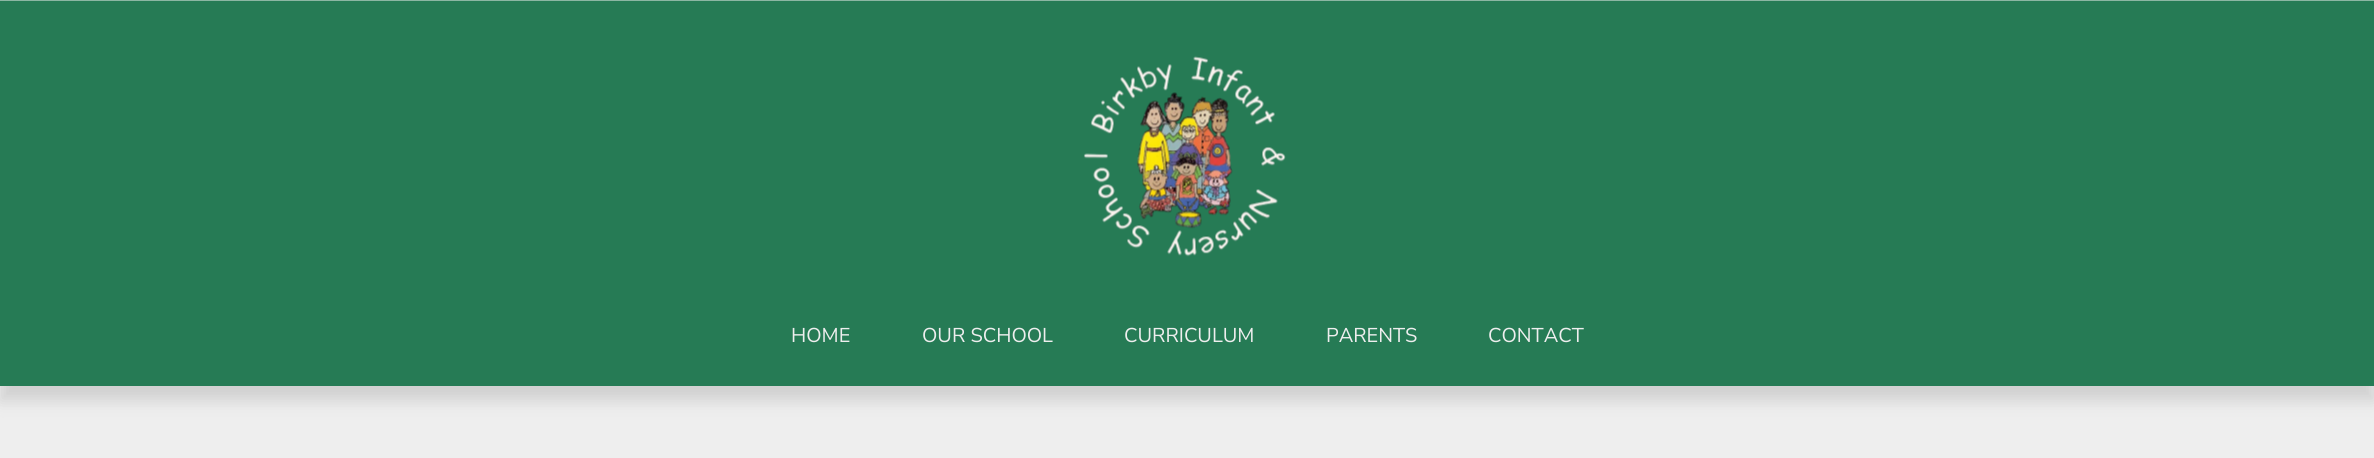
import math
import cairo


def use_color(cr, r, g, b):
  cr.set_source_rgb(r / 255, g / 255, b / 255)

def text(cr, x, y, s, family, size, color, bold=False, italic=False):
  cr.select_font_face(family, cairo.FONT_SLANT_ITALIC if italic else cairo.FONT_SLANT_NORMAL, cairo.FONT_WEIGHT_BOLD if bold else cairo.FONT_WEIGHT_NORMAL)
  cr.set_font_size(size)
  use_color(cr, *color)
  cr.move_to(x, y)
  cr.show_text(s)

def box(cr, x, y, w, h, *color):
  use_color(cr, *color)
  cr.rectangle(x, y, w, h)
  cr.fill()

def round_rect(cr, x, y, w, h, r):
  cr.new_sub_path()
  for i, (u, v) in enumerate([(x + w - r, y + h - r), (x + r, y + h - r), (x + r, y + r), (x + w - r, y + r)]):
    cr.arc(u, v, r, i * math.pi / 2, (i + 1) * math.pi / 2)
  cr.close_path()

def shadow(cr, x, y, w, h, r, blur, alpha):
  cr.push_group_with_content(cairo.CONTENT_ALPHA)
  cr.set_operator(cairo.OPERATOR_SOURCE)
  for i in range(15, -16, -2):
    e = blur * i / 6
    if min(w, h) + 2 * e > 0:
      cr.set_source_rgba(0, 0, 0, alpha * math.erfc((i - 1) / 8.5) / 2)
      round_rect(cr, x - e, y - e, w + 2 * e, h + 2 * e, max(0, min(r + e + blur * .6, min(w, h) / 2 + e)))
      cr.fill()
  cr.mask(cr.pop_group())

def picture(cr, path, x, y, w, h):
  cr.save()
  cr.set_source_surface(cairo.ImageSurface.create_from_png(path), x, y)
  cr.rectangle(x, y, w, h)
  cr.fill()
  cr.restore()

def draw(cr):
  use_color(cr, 238, 238, 238)
  cr.paint()
  use_color(cr, 209, 209, 209)
  shadow(cr, 0, 15, 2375, 386, 0, 7.5, 1)
  box(cr, 0, 0, 2374, 1, 140, 182, 163)
  box(cr, 0, 1, 2374, 385, 38, 123, 85)
  picture(cr, "img_01.png", 1083, 56, 203, 201)
  text(cr, 791, 342, "HOME", "Nunito Sans", 20, (238, 238, 238))
  text(cr, 922, 342, "OUR SCHOOL", "Nunito Sans", 20, (238, 238, 238))
  text(cr, 1124, 342, "CURRICULUM", "Nunito Sans", 20, (238, 238, 238))
  text(cr, 1326, 342, "PARENTS", "Nunito Sans", 20, (238, 238, 238))
  text(cr, 1488, 342, "CONTACT", "Nunito Sans", 20, (238, 238, 238))


surface = cairo.ImageSurface(cairo.FORMAT_RGB24, 2374, 458)
cr = cairo.Context(surface)
options = cairo.FontOptions()
options.set_hint_metrics(cairo.HINT_METRICS_OFF)
options.set_hint_style(cairo.HINT_STYLE_NONE)
cr.set_font_options(options)
cr.set_miter_limit(4)
draw(cr)
surface.write_to_png("out.png")
